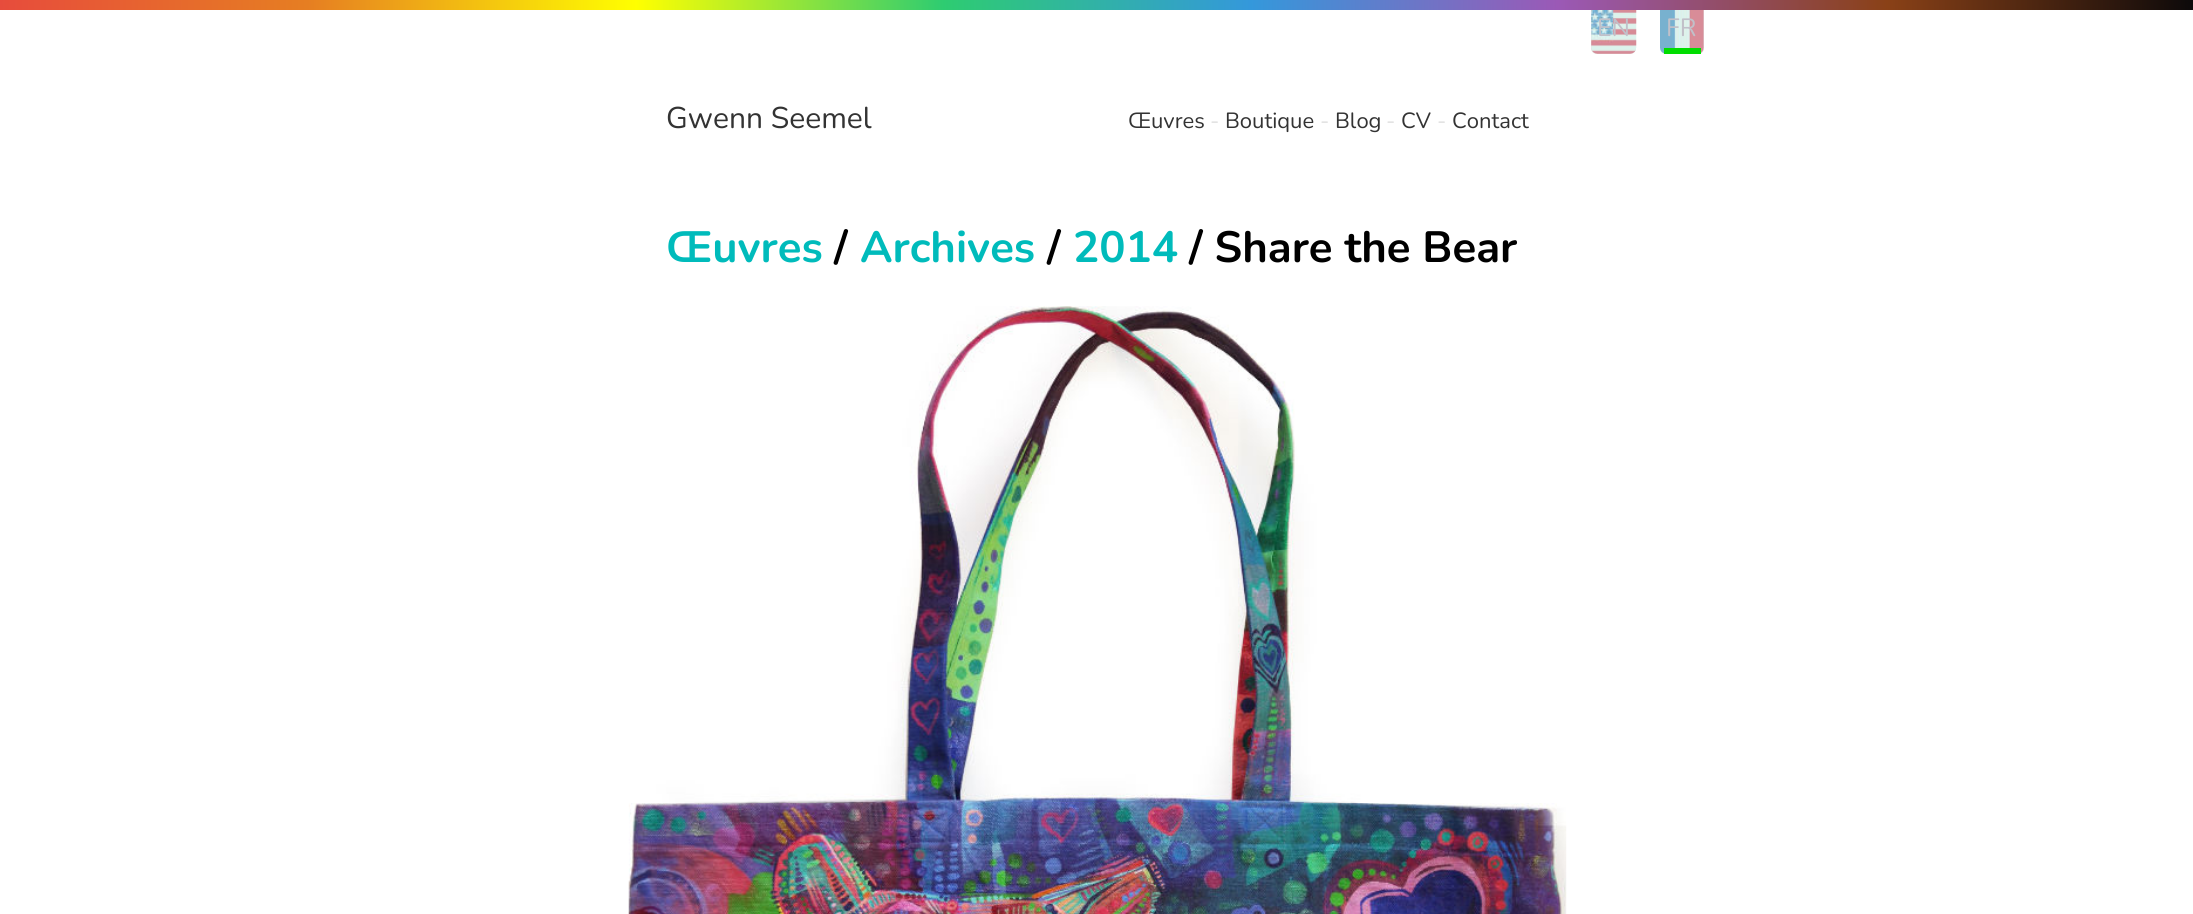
import math
import cairo


def use_color(cr, r, g, b):
  cr.set_source_rgb(r / 255, g / 255, b / 255)

def text(cr, x, y, s, family, size, color, bold=False, italic=False):
  cr.select_font_face(family, cairo.FONT_SLANT_ITALIC if italic else cairo.FONT_SLANT_NORMAL, cairo.FONT_WEIGHT_BOLD if bold else cairo.FONT_WEIGHT_NORMAL)
  cr.set_font_size(size)
  use_color(cr, *color)
  cr.move_to(x, y)
  cr.show_text(s)

def box(cr, x, y, w, h, *color):
  use_color(cr, *color)
  cr.rectangle(x, y, w, h)
  cr.fill()

def picture(cr, path, x, y, w, h):
  cr.save()
  cr.set_source_surface(cairo.ImageSurface.create_from_png(path), x, y)
  cr.rectangle(x, y, w, h)
  cr.fill()
  cr.restore()

def draw(cr):
  use_color(cr, 255, 255, 255)
  cr.paint()
  gradient = cairo.LinearGradient(0, 5, 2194, 5)
  gradient.add_color_stop_rgba(0, 0.906, 0.298, 0.235, 1)
  gradient.add_color_stop_rgba(0.14, 0.902, 0.494, 0.133, 1)
  gradient.add_color_stop_rgba(0.29, 1, 1, 0, 1)
  gradient.add_color_stop_rgba(0.43, 0.18, 0.8, 0.443, 1)
  gradient.add_color_stop_rgba(0.57, 0.204, 0.596, 0.859, 1)
  gradient.add_color_stop_rgba(0.71, 0.608, 0.349, 0.714, 1)
  gradient.add_color_stop_rgba(0.86, 0.541, 0.255, 0.09, 1)
  gradient.add_color_stop_rgba(1, 0.047, 0.035, 0.039, 1)
  cr.set_source(gradient)
  cr.rectangle(0, 0, 2193, 10)
  cr.fill()
  use_color(cr, 223, 223, 223)
  cr.new_path()
  cr.move_to(1591, 10)
  cr.line_to(1636, 10)
  cr.line_to(1636, 48)
  cr.curve_to(1636, 51.5, 1633.5, 54, 1630, 54)
  cr.line_to(1597, 54)
  cr.curve_to(1593.5, 54, 1591, 51.5, 1591, 48)
  cr.close_path()
  cr.fill()
  picture(cr, "img_01.png", 1591, 10, 46, 44)
  cr.new_path()
  cr.move_to(1660, 10)
  cr.line_to(1704, 10)
  cr.line_to(1704, 48)
  cr.curve_to(1704, 51.5, 1701.5, 54, 1698, 54)
  cr.line_to(1666, 54)
  cr.curve_to(1662.5, 54, 1660, 51.5, 1660, 48)
  cr.close_path()
  cr.fill()
  picture(cr, "img_02.png", 1660, 10, 44, 44)
  box(cr, 1664, 48, 37, 6, 0, 221, 0)
  picture(cr, "img_03.png", 628, 306, 939, 608)
  text(cr, 1597, 36, "EN", "Nunito", 25, (193, 192, 201))
  text(cr, 1666, 36, "FR", "Nunito", 25, (193, 192, 201))
  text(cr, 666, 128, "Gwenn Seemel", "Nunito", 30, (51, 51, 51))
  text(cr, 1128, 128, "Œuvres", "Nunito", 22, (51, 51, 51))
  text(cr, 1210, 128, "-", "Nunito", 22, (223, 223, 223))
  text(cr, 1225, 128, "Boutique", "Nunito", 22, (51, 51, 51))
  text(cr, 1320, 128, "-", "Nunito", 22, (223, 223, 223))
  text(cr, 1335, 128, "Blog", "Nunito", 22, (51, 51, 51))
  text(cr, 1386, 128, "-", "Nunito", 22, (223, 223, 223))
  text(cr, 1401, 128, "CV", "Nunito", 22, (51, 51, 51))
  text(cr, 1437, 128, "-", "Nunito", 22, (223, 223, 223))
  text(cr, 1452, 128, "Contact", "Nunito", 22, (51, 51, 51))
  text(cr, 666, 262, "Œuvres", "Nunito", 43.75, (0, 187, 187), bold=True)
  text(cr, 834, 262, "/", "Nunito", 43.75, (0, 0, 0), bold=True)
  text(cr, 860, 262, "Archives", "Nunito", 43.75, (0, 187, 187), bold=True)
  text(cr, 1047, 262, "/", "Nunito", 43.75, (0, 0, 0), bold=True)
  text(cr, 1073, 262, "2014", "Nunito", 43.75, (0, 187, 187), bold=True)
  text(cr, 1189, 262, "/ Share the Bear", "Nunito", 43.75, (0, 0, 0), bold=True)


surface = cairo.ImageSurface(cairo.FORMAT_RGB24, 2193, 914)
cr = cairo.Context(surface)
options = cairo.FontOptions()
options.set_hint_metrics(cairo.HINT_METRICS_OFF)
options.set_hint_style(cairo.HINT_STYLE_NONE)
cr.set_font_options(options)
cr.set_miter_limit(4)
draw(cr)
surface.write_to_png("out.png")
